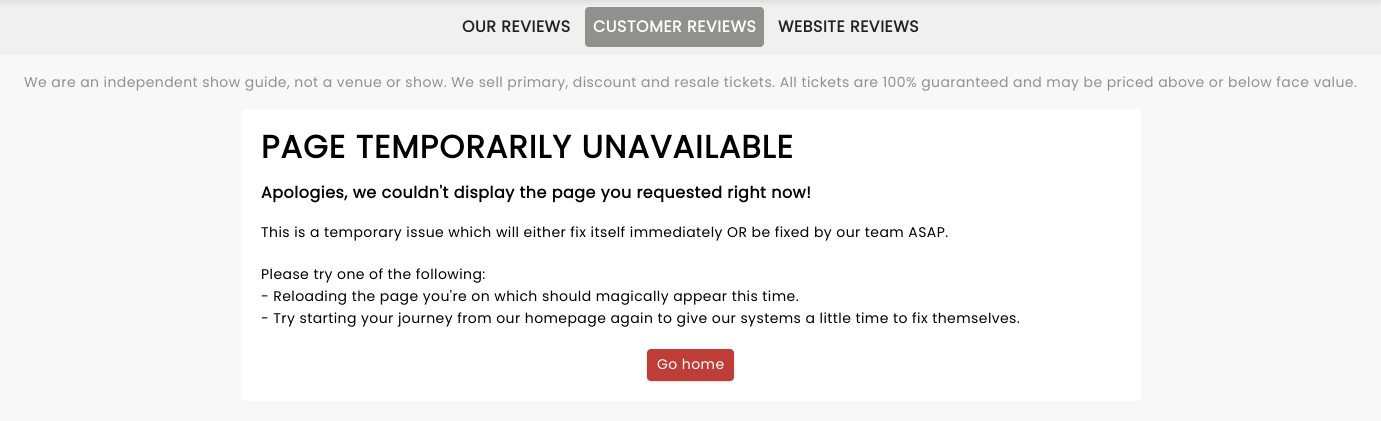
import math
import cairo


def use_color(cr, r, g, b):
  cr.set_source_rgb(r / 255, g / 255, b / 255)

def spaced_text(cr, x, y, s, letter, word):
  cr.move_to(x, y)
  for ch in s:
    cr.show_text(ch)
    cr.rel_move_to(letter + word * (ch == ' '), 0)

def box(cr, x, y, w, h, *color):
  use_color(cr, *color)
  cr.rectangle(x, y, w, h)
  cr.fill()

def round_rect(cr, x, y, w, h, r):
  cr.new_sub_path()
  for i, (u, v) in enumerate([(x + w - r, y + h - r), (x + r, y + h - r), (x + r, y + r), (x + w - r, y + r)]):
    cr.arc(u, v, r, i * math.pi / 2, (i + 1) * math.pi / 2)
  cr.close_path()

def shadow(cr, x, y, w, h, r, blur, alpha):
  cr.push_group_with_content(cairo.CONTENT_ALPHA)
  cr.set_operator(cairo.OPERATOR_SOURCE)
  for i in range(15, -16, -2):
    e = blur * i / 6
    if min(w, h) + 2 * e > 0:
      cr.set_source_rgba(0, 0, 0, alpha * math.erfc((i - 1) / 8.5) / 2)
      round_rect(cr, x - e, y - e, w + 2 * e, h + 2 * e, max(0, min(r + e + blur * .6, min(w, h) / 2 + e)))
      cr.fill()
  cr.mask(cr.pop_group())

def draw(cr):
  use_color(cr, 248, 248, 248)
  cr.paint()
  box(cr, 0, 0, 1381, 55, 240, 240, 240)
  use_color(cr, 144, 144, 143)
  round_rect(cr, 585, 7, 179, 40, 4)
  cr.fill()
  use_color(cr, 0, 0, 0)
  shadow(cr, 1, -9, 1379, 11, 0, 3, 0.1)
  use_color(cr, 255, 255, 255)
  round_rect(cr, 241, 109, 900, 292, 4)
  cr.fill()
  use_color(cr, 0, 0, 0)
  shadow(cr, 648, 351, 85, 30, 3, 1, 0.1)
  shadow(cr, 647, 350, 87, 32, 4, 1.5, 0.1)
  use_color(cr, 191, 61, 55)
  round_rect(cr, 647, 349, 87, 32, 4)
  cr.fill()
  cr.select_font_face("Poppins", cairo.FONT_SLANT_NORMAL, cairo.FONT_WEIGHT_BOLD)
  cr.set_font_size(16)
  use_color(cr, 33, 33, 32)
  spaced_text(cr, 462, 32, "OUR REVIEWS", 0.48, 0)
  use_color(cr, 255, 255, 255)
  spaced_text(cr, 593, 32, "CUSTOMER REVIEWS", 0.48, 0)
  use_color(cr, 33, 33, 32)
  spaced_text(cr, 778, 32, "WEBSITE REVIEWS", 0.48, 0)
  cr.select_font_face("Poppins")
  cr.set_font_size(14)
  use_color(cr, 144, 144, 143)
  spaced_text(cr, 24, 87, "We are an independent show guide, not a venue or show. We sell primary, discount and resale tickets. All tickets are 100% guaranteed and may be priced above or below face value.", 0.42, 0)
  cr.select_font_face("Poppins", cairo.FONT_SLANT_NORMAL, cairo.FONT_WEIGHT_BOLD)
  cr.set_font_size(32)
  use_color(cr, 0, 0, 0)
  spaced_text(cr, 261, 158, "PAGE TEMPORARILY UNAVAILABLE", 0.95, 0)
  cr.set_font_size(16)
  spaced_text(cr, 261, 198, "Apologies, we couldn't display the page you requested right now!", 0.48, 0)
  cr.select_font_face("Poppins")
  cr.set_font_size(14)
  spaced_text(cr, 261, 237, "This is a temporary issue which will either fix itself immediately OR be fixed by our team ASAP.", 0.42, 0)
  spaced_text(cr, 261, 279, "Please try one of the following:", 0.42, 0)
  spaced_text(cr, 261, 301, "- Reloading the page you're on which should magically appear this time.", 0.42, 0)
  spaced_text(cr, 261, 323, "- Try starting your journey from our homepage again to give our systems a little time to fix themselves.", 0.42, 0)
  use_color(cr, 255, 255, 255)
  spaced_text(cr, 657, 369, "Go home", 0.42, 0)


surface = cairo.ImageSurface(cairo.FORMAT_RGB24, 1381, 421)
cr = cairo.Context(surface)
options = cairo.FontOptions()
options.set_hint_metrics(cairo.HINT_METRICS_OFF)
options.set_hint_style(cairo.HINT_STYLE_NONE)
cr.set_font_options(options)
cr.set_miter_limit(4)
draw(cr)
surface.write_to_png("out.png")
